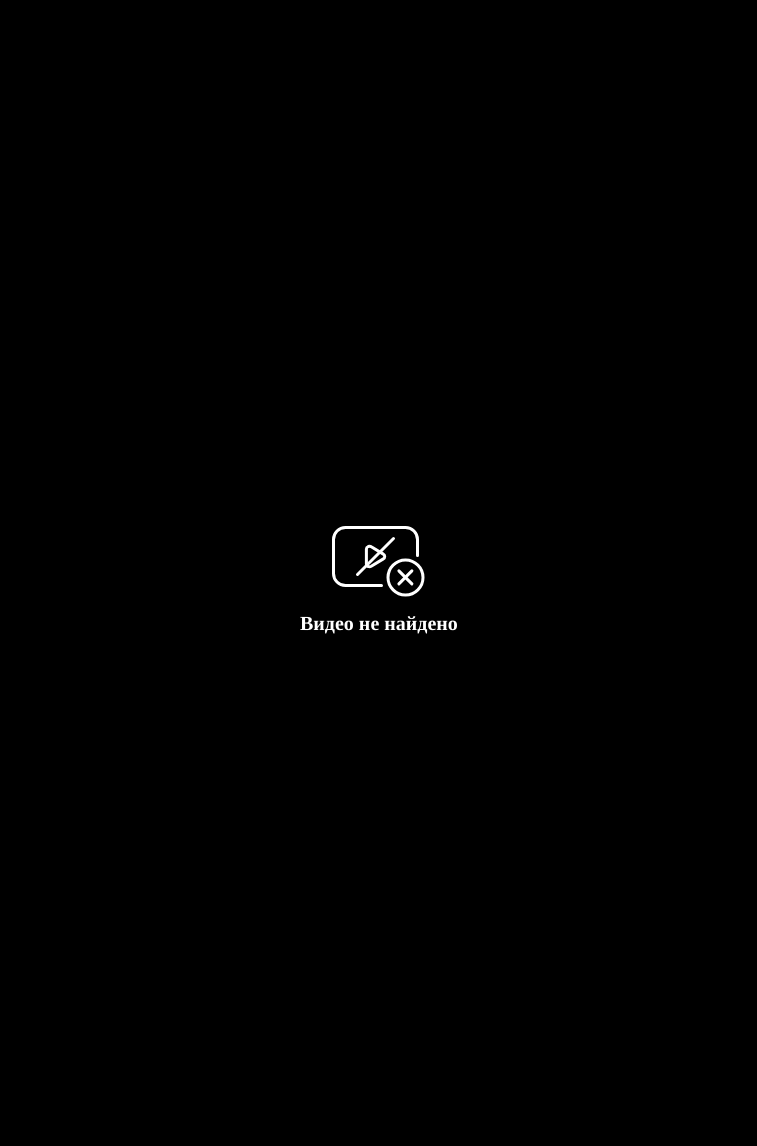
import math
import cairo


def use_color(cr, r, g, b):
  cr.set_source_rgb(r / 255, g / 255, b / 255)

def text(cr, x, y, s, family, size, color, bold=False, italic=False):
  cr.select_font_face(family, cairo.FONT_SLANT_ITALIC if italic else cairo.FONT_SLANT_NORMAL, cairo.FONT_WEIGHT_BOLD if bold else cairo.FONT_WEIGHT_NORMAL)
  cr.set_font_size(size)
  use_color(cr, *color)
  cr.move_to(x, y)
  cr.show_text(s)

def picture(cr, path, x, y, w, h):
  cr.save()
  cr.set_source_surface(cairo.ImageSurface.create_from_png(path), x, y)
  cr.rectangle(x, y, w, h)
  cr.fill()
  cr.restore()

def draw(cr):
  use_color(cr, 0, 0, 0)
  cr.paint()
  picture(cr, "img_01.png", 332, 526, 93, 71)
  text(cr, 300, 630, "Видео не найдено", "Liberation Serif", 20, (255, 255, 255), bold=True)


surface = cairo.ImageSurface(cairo.FORMAT_RGB24, 757, 1146)
cr = cairo.Context(surface)
options = cairo.FontOptions()
options.set_hint_metrics(cairo.HINT_METRICS_OFF)
options.set_hint_style(cairo.HINT_STYLE_NONE)
cr.set_font_options(options)
cr.set_miter_limit(4)
draw(cr)
surface.write_to_png("out.png")
